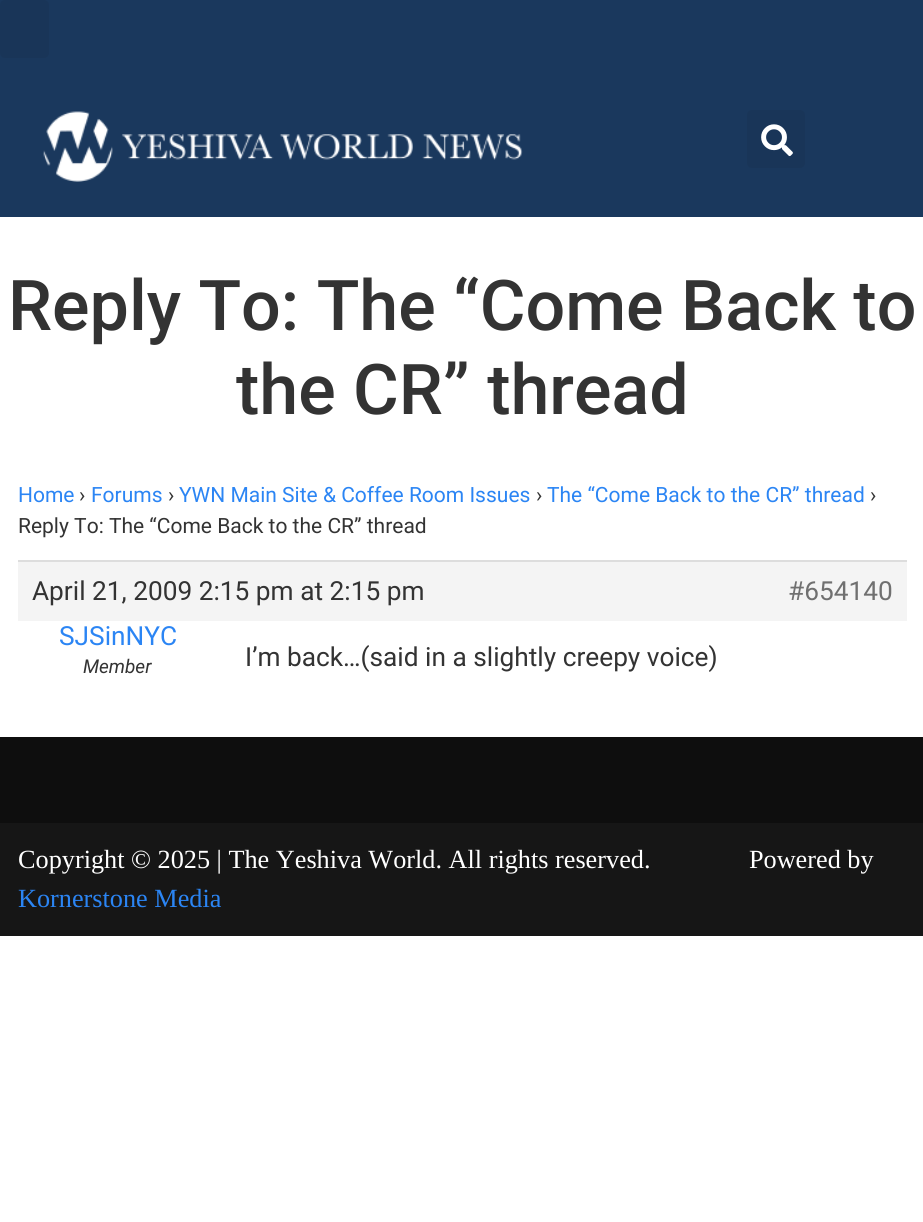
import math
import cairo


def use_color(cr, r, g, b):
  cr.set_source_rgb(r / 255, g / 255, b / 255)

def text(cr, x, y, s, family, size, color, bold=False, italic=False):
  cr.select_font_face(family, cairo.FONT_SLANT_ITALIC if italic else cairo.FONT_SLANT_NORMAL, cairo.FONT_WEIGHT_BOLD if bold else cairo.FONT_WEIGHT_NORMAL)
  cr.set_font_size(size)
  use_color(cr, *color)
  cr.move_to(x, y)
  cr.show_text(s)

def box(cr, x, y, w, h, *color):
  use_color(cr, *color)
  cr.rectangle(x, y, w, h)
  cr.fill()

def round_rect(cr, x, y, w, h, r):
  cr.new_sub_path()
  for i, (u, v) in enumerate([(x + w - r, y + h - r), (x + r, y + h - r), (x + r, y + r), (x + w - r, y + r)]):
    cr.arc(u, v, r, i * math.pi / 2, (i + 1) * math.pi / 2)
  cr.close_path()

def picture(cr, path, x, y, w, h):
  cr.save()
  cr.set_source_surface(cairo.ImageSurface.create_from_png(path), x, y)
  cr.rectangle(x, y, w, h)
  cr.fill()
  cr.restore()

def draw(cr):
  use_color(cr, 255, 255, 255)
  cr.paint()
  box(cr, 0, 0, 923, 217, 26, 56, 93)
  use_color(cr, 25, 53, 88)
  round_rect(cr, 0, 0, 49, 58, 5)
  cr.fill()
  picture(cr, "img_01.png", 43, 111, 480, 71)
  round_rect(cr, 747, 110, 58, 58, 5)
  cr.fill()
  picture(cr, "img_02.png", 761, 124, 32, 33)
  box(cr, 18, 562, 889, 59, 244, 244, 244)
  box(cr, 18, 560, 889, 2, 221, 221, 221)
  box(cr, 0, 737, 923, 86, 14, 14, 14)
  box(cr, 0, 823, 923, 113, 22, 22, 22)
  text(cr, 8, 330, "Reply To: The “Come Back to", "Roboto Medium", 70, (51, 51, 51))
  text(cr, 236, 414, "the CR” thread", "Roboto Medium", 70, (51, 51, 51))
  text(cr, 18, 502, "Home", "Roboto", 21, (43, 133, 244))
  text(cr, 79, 502, "›", "Roboto", 21, (51, 51, 51))
  text(cr, 91, 502, "Forums", "Roboto", 21, (43, 133, 244))
  text(cr, 168, 502, "›", "Roboto", 21, (51, 51, 51))
  text(cr, 179, 502, "YWN Main Site & Coffee Room Issues", "Roboto", 21, (43, 133, 244))
  text(cr, 536, 502, "›", "Roboto", 21, (51, 51, 51))
  text(cr, 547, 502, "The “Come Back to the CR” thread", "Roboto", 21, (43, 133, 244))
  text(cr, 870, 502, "›", "Roboto", 21, (51, 51, 51))
  text(cr, 18, 533, "Reply To: The “Come Back to the CR” thread", "Roboto", 21, (51, 51, 51))
  text(cr, 32, 600, "April 21, 2009 2:15 pm at 2:15 pm", "Roboto", 26.25, (51, 51, 51))
  text(cr, 788, 600, "#654140", "Roboto", 26.25, (112, 112, 112))
  text(cr, 59, 645, "SJSinNYC", "Roboto", 26.25, (43, 133, 244))
  text(cr, 83, 673, "Member", "Roboto", 19, (51, 51, 51), italic=True)
  text(cr, 245, 666, "I’m back…(said in a slightly creepy voice)", "Roboto", 26.25, (51, 51, 51))
  text(cr, 18, 868, "Copyright © 2025 | The Yeshiva World. All rights reserved.               Powered by", "Liberation Serif", 26.25, (255, 255, 255))
  text(cr, 18, 907, "Kornerstone Media", "Liberation Serif", 26.25, (43, 133, 244))


surface = cairo.ImageSurface(cairo.FORMAT_RGB24, 923, 1222)
cr = cairo.Context(surface)
options = cairo.FontOptions()
options.set_hint_metrics(cairo.HINT_METRICS_OFF)
options.set_hint_style(cairo.HINT_STYLE_NONE)
cr.set_font_options(options)
cr.set_miter_limit(4)
draw(cr)
surface.write_to_png("out.png")
